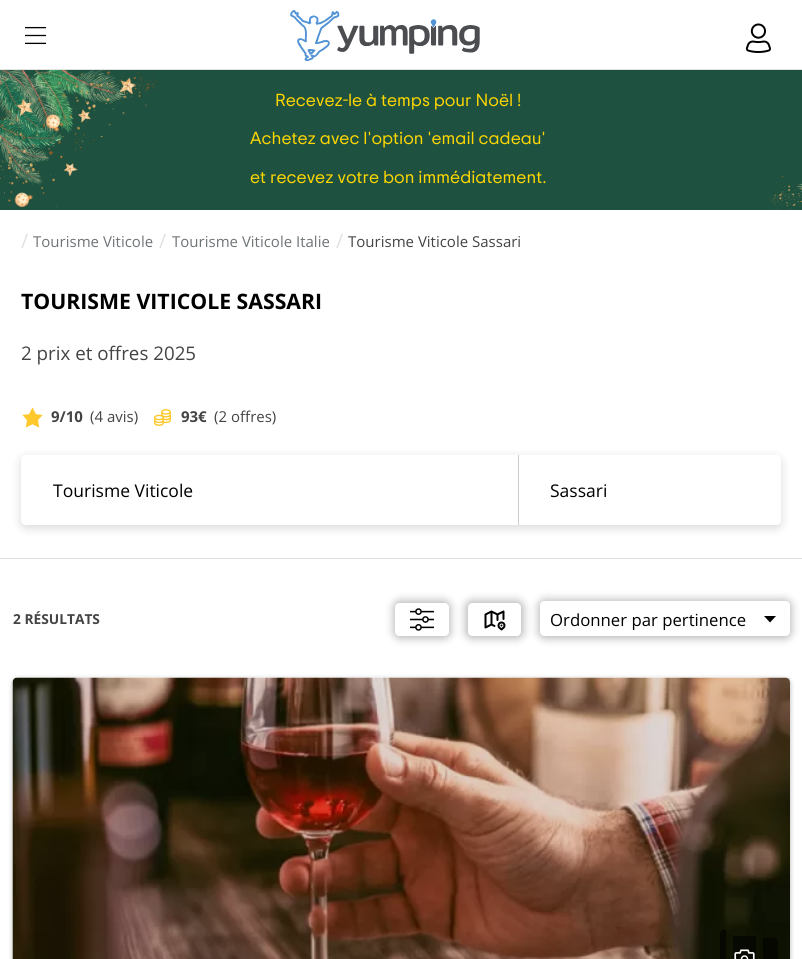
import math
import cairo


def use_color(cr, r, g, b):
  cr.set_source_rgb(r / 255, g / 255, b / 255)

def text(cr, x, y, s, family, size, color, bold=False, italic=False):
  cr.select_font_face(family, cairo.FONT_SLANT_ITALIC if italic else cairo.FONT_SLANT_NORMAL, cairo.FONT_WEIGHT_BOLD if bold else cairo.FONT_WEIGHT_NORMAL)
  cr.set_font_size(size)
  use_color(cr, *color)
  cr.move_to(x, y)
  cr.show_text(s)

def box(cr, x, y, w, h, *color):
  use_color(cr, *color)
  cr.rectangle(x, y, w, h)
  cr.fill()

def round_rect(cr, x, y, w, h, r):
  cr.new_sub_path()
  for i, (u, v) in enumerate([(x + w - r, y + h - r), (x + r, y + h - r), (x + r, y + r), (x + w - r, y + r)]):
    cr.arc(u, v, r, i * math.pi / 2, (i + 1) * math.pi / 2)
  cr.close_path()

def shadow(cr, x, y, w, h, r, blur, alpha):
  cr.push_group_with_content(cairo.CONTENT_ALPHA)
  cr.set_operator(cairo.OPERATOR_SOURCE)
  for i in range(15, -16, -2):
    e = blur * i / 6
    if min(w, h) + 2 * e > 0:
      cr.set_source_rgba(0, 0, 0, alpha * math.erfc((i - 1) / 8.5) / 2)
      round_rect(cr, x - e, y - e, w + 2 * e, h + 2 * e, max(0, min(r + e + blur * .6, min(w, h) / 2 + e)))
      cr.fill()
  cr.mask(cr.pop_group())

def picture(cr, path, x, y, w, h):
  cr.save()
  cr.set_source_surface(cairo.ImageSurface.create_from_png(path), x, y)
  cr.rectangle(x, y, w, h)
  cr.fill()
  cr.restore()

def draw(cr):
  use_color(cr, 255, 255, 255)
  cr.paint()
  picture(cr, "img_01.png", 25, 26, 21, 19)
  picture(cr, "img_02.png", 290, 10, 190, 51)
  picture(cr, "img_03.png", 745, 23, 26, 30)
  box(cr, 0, 69, 802, 1, 225, 225, 225)
  picture(cr, "img_04.png", 0, 70, 802, 140)
  picture(cr, "img_05.png", 22, 407, 21, 21)
  picture(cr, "img_06.png", 154, 409, 17, 17)
  use_color(cr, 0, 0, 0)
  shadow(cr, 21, 458, 760, 70, 5, 5, 0.15)
  use_color(cr, 255, 255, 255)
  cr.new_path()
  cr.move_to(26, 455)
  cr.line_to(518, 455)
  cr.line_to(518, 525)
  cr.line_to(26, 525)
  cr.curve_to(23, 525, 21, 523, 21, 520)
  cr.line_to(21, 460)
  cr.curve_to(21, 457, 23, 455, 26, 455)
  cr.close_path()
  cr.fill()
  cr.new_path()
  cr.move_to(518, 455)
  cr.line_to(776, 455)
  cr.curve_to(779, 455, 781, 457, 781, 460)
  cr.line_to(781, 520)
  cr.curve_to(781, 523, 779, 525, 776, 525)
  cr.line_to(518, 525)
  cr.close_path()
  cr.fill()
  box(cr, 518, 455, 1, 70, 205, 205, 205)
  box(cr, 0, 558, 802, 1, 225, 225, 225)
  cr.save()
  cr.set_fill_rule(cairo.FILL_RULE_EVEN_ODD)
  cr.new_path()
  cr.move_to(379, 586)
  cr.line_to(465, 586)
  cr.line_to(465, 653)
  cr.line_to(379, 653)
  cr.close_path()
  cr.move_to(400, 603)
  cr.line_to(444, 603)
  cr.curve_to(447, 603, 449, 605, 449, 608)
  cr.line_to(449, 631)
  cr.curve_to(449, 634, 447, 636, 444, 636)
  cr.line_to(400, 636)
  cr.curve_to(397, 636, 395, 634, 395, 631)
  cr.line_to(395, 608)
  cr.curve_to(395, 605, 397, 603, 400, 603)
  cr.close_path()
  cr.clip()
  use_color(cr, 0, 0, 0)
  shadow(cr, 394, 601, 56, 37, 6, 4.5, 0.3)
  cr.restore()
  picture(cr, "img_07.png", 410, 608, 24, 23)
  cr.save()
  cr.set_fill_rule(cairo.FILL_RULE_EVEN_ODD)
  cr.new_path()
  cr.move_to(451, 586)
  cr.line_to(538, 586)
  cr.line_to(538, 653)
  cr.line_to(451, 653)
  cr.close_path()
  cr.move_to(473, 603)
  cr.line_to(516, 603)
  cr.curve_to(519, 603, 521, 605, 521, 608)
  cr.line_to(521, 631)
  cr.curve_to(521, 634, 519, 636, 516, 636)
  cr.line_to(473, 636)
  cr.curve_to(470, 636, 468, 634, 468, 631)
  cr.line_to(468, 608)
  cr.curve_to(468, 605, 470, 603, 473, 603)
  cr.close_path()
  cr.clip()
  use_color(cr, 0, 0, 0)
  shadow(cr, 466, 601, 57, 37, 6, 4.5, 0.3)
  cr.restore()
  picture(cr, "img_08.png", 484, 610, 22, 21)
  cr.save()
  cr.set_fill_rule(cairo.FILL_RULE_EVEN_ODD)
  cr.new_path()
  cr.move_to(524, 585)
  cr.line_to(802, 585)
  cr.line_to(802, 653)
  cr.line_to(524, 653)
  cr.close_path()
  cr.move_to(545, 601)
  cr.line_to(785, 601)
  cr.curve_to(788, 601, 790, 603, 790, 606)
  cr.line_to(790, 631)
  cr.curve_to(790, 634, 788, 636, 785, 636)
  cr.line_to(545, 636)
  cr.curve_to(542, 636, 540, 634, 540, 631)
  cr.line_to(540, 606)
  cr.curve_to(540, 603, 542, 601, 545, 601)
  cr.close_path()
  cr.clip()
  use_color(cr, 0, 0, 0)
  shadow(cr, 539, 600, 252, 38, 6, 4.5, 0.3)
  cr.restore()
  use_color(cr, 0, 0, 0)
  cr.new_path()
  cr.move_to(764, 616)
  cr.line_to(770, 622.5)
  cr.line_to(776, 616)
  cr.close_path()
  cr.fill()
  use_color(cr, 0, 0, 0)
  shadow(cr, 13, 679, 777, 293, 5, 2.5, 0.3)
  picture(cr, "img_09.png", 12, 677, 778, 282)
  cr.set_source_rgba(0, 0, 0, 0.12)
  cr.rectangle(13, 678, 777, 281)
  cr.fill()
  cr.set_source_rgba(0, 0, 0, 0.6)
  cr.new_path()
  cr.move_to(723, 930)
  cr.line_to(726, 930)
  cr.line_to(726, 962)
  cr.line_to(723, 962)
  cr.curve_to(721.5, 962, 720, 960.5, 720, 959)
  cr.line_to(720, 933)
  cr.curve_to(720, 931.5, 721.5, 930, 723, 930)
  cr.close_path()
  cr.fill()
  cr.rectangle(733, 936, 23, 23)
  cr.fill()
  cr.new_path()
  cr.move_to(763, 938)
  cr.line_to(774, 938)
  cr.curve_to(776, 938, 778, 940, 778, 942)
  cr.line_to(778, 959)
  cr.curve_to(778, 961, 776, 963, 774, 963)
  cr.line_to(763, 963)
  cr.close_path()
  cr.fill()
  picture(cr, "img_10.png", 734, 949, 21, 10)
  text(cr, 275, 106, "Recevez-le à temps pour Noël !", "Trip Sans", 17.5, (255, 215, 0))
  text(cr, 250, 144, "Achetez avec l'option 'email cadeau'", "Trip Sans", 17.5, (255, 215, 0))
  text(cr, 250, 183, "et recevez votre bon immédiatement.", "Trip Sans", 17.5, (255, 215, 0))
  text(cr, 21, 248, "/", "Open Sans", 20, (225, 225, 225))
  text(cr, 33, 247, "Tourisme Viticole", "Open Sans", 15, (111, 116, 119))
  text(cr, 159, 248, "/", "Open Sans", 20, (225, 225, 225))
  text(cr, 172, 247, "Tourisme Viticole Italie", "Open Sans", 15, (111, 116, 119))
  text(cr, 336, 248, "/", "Open Sans", 20, (225, 225, 225))
  text(cr, 348, 247, "Tourisme Viticole Sassari", "Open Sans", 15, (68, 68, 68))
  text(cr, 21, 309, "TOURISME VITICOLE SASSARI", "Open Sans", 21.25, (0, 0, 0), bold=True)
  text(cr, 21, 360, "2 prix et offres 2025", "Open Sans", 18.75, (68, 68, 68))
  text(cr, 51, 422, "9/10", "Open Sans", 15, (68, 68, 68), bold=True)
  text(cr, 90, 422, "(4 avis)", "Open Sans", 15, (68, 68, 68))
  text(cr, 181, 422, "93€", "Open Sans", 15, (68, 68, 68), bold=True)
  text(cr, 214, 422, "(2 offres)", "Open Sans", 15, (68, 68, 68))
  text(cr, 53, 497, "Tourisme Viticole", "Open Sans", 17.5, (0, 0, 0))
  text(cr, 550, 497, "Sassari", "Open Sans", 17.5, (0, 0, 0))
  text(cr, 13, 624, "2 RÉSULTATS", "Open Sans", 13.75, (68, 68, 68), bold=True)
  text(cr, 550, 626, "Ordonner par pertinence", "Open Sans", 16.75, (0, 0, 0))


surface = cairo.ImageSurface(cairo.FORMAT_RGB24, 802, 959)
cr = cairo.Context(surface)
options = cairo.FontOptions()
options.set_hint_metrics(cairo.HINT_METRICS_OFF)
options.set_hint_style(cairo.HINT_STYLE_NONE)
cr.set_font_options(options)
cr.set_miter_limit(4)
draw(cr)
surface.write_to_png("out.png")
